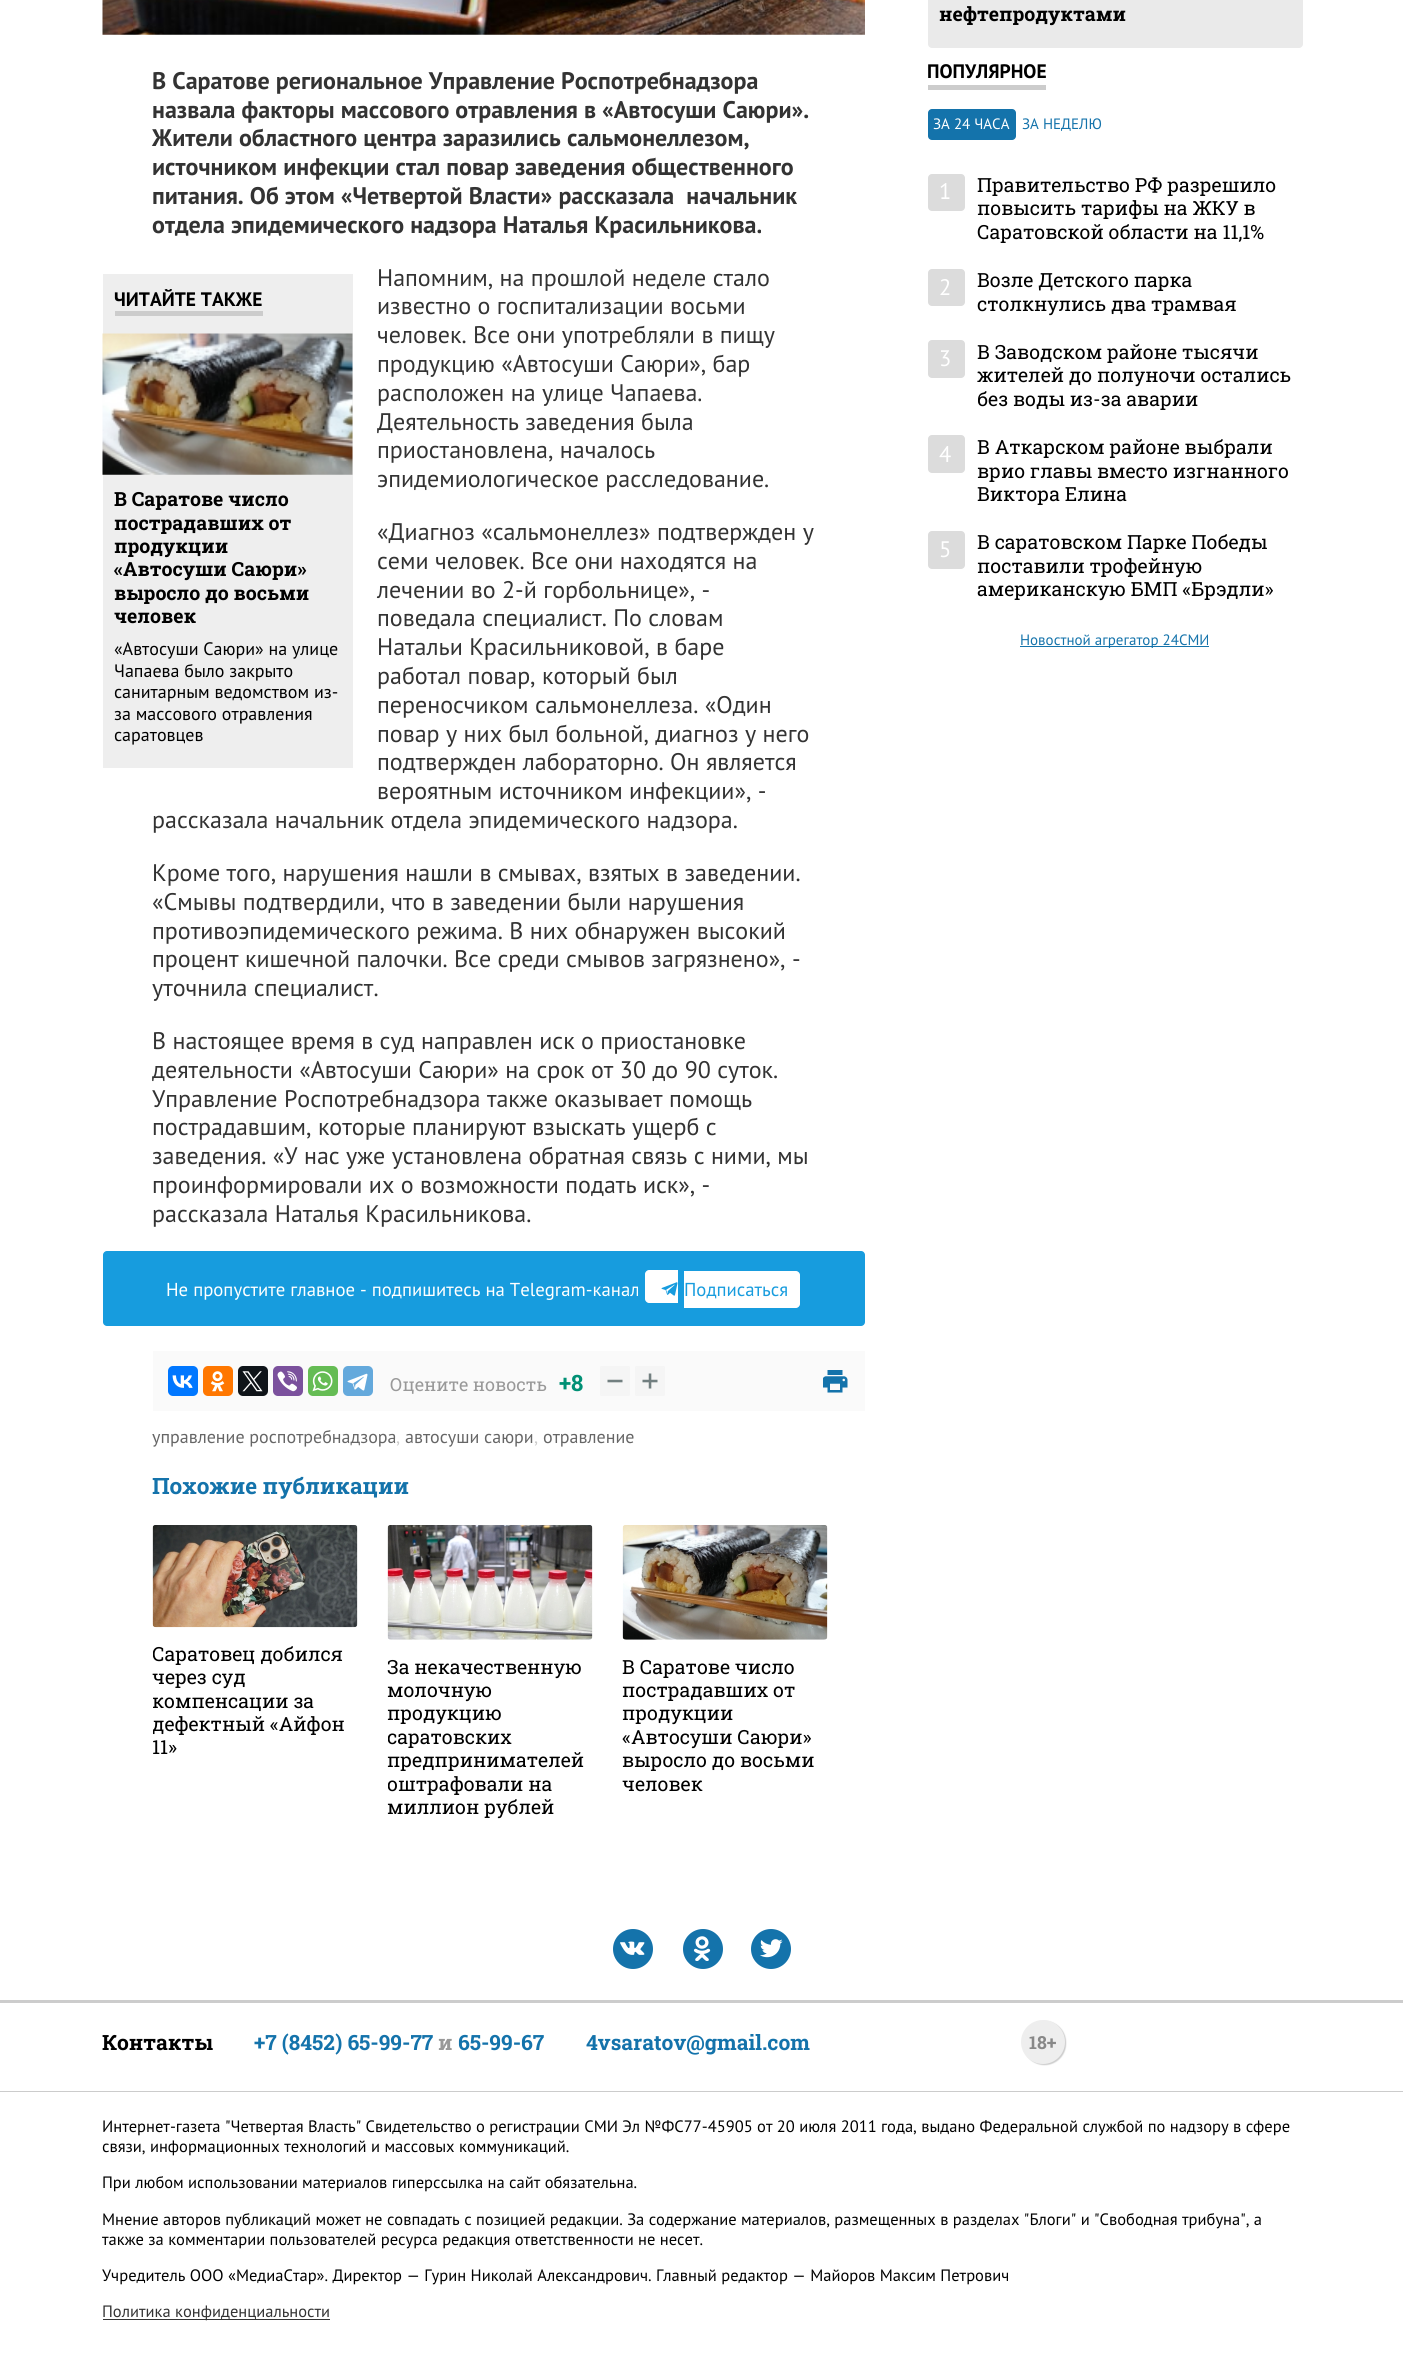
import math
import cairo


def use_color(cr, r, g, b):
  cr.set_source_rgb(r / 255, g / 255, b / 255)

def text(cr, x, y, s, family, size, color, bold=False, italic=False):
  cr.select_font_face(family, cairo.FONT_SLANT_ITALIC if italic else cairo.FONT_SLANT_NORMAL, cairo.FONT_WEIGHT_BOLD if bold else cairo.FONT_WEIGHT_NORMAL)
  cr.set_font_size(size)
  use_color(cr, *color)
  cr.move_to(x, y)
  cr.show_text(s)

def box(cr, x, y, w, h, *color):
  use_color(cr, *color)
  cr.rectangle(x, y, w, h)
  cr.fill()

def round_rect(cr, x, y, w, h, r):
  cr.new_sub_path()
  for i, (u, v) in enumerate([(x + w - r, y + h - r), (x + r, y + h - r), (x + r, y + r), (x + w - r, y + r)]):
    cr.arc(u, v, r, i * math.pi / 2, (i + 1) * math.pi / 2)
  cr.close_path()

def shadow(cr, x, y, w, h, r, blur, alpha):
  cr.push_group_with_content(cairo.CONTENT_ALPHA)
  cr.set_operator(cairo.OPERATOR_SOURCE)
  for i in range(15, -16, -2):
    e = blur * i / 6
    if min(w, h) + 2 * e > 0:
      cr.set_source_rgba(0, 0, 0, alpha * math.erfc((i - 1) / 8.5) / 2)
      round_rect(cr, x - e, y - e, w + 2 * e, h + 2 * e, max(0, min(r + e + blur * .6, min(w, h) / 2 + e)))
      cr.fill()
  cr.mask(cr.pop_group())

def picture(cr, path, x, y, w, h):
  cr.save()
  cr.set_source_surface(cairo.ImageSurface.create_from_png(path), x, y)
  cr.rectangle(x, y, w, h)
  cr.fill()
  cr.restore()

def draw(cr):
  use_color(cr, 255, 255, 255)
  cr.paint()
  picture(cr, "img_01.png", 102, 0, 763, 35)
  box(cr, 103, 274, 250, 494, 238, 238, 238)
  box(cr, 115, 311, 148, 5, 204, 204, 204)
  picture(cr, "img_02.png", 102, 333, 251, 142)
  use_color(cr, 23, 156, 222)
  round_rect(cr, 103, 1251, 762, 75, 4)
  cr.fill()
  use_color(cr, 255, 255, 255)
  cr.new_path()
  cr.move_to(649, 1270)
  cr.line_to(678, 1270)
  cr.line_to(678, 1303)
  cr.line_to(649, 1303)
  cr.curve_to(647, 1303, 645, 1301, 645, 1299)
  cr.line_to(645, 1274)
  cr.curve_to(645, 1272, 647, 1270, 649, 1270)
  cr.close_path()
  cr.fill()
  cr.new_path()
  cr.move_to(684, 1271)
  cr.line_to(796, 1271)
  cr.curve_to(798, 1271, 800, 1273, 800, 1275)
  cr.line_to(800, 1304)
  cr.curve_to(800, 1306, 798, 1308, 796, 1308)
  cr.line_to(684, 1308)
  cr.close_path()
  cr.fill()
  picture(cr, "img_03.png", 661, 1282, 17, 14)
  box(cr, 153, 1351, 712, 60, 250, 250, 250)
  use_color(cr, 0, 119, 255)
  round_rect(cr, 168, 1366, 30, 30, 5)
  cr.fill()
  picture(cr, "img_04.png", 172, 1375, 21, 13)
  use_color(cr, 255, 119, 0)
  round_rect(cr, 203, 1366, 30, 30, 5)
  cr.fill()
  picture(cr, "img_05.png", 210, 1371, 15, 21)
  use_color(cr, 15, 20, 25)
  round_rect(cr, 238, 1366, 30, 30, 5)
  cr.fill()
  picture(cr, "img_06.png", 242, 1371, 21, 21)
  use_color(cr, 123, 81, 157)
  round_rect(cr, 273, 1366, 30, 30, 5)
  cr.fill()
  picture(cr, "img_07.png", 277, 1371, 20, 21)
  use_color(cr, 101, 188, 84)
  round_rect(cr, 308, 1366, 30, 30, 5)
  cr.fill()
  picture(cr, "img_08.png", 312, 1371, 21, 21)
  use_color(cr, 100, 169, 220)
  round_rect(cr, 343, 1366, 30, 30, 5)
  cr.fill()
  picture(cr, "img_09.png", 347, 1373, 21, 18)
  picture(cr, "img_10.png", 600, 1366, 30, 30)
  picture(cr, "img_11.png", 635, 1366, 30, 30)
  picture(cr, "img_12.png", 823, 1370, 25, 23)
  picture(cr, "img_13.png", 152, 1525, 206, 103)
  picture(cr, "img_14.png", 387, 1525, 206, 115)
  picture(cr, "img_15.png", 622, 1525, 206, 115)
  use_color(cr, 234, 234, 234)
  round_rect(cr, 928, -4, 375, 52, 4)
  cr.fill()
  box(cr, 928, 85, 118, 5, 204, 204, 204)
  use_color(cr, 20, 115, 171)
  round_rect(cr, 928, 109, 88, 31, 4)
  cr.fill()
  use_color(cr, 220, 220, 220)
  round_rect(cr, 928, 174, 37, 37, 4)
  cr.fill()
  round_rect(cr, 928, 269, 37, 37, 4)
  cr.fill()
  round_rect(cr, 928, 340, 37, 38, 4)
  cr.fill()
  round_rect(cr, 928, 435, 37, 38, 4)
  cr.fill()
  round_rect(cr, 928, 531, 37, 38, 4)
  cr.fill()
  box(cr, 1020, 646, 189, 1, 20, 115, 171)
  cr.arc(633, 1949, 20, 0, 2 * math.pi)
  cr.fill()
  picture(cr, "img_16.png", 620, 1941, 25, 14)
  cr.arc(703, 1949, 20, 0, 2 * math.pi)
  cr.fill()
  picture(cr, "img_17.png", 693, 1936, 18, 25)
  cr.arc(771, 1949, 20, 0, 2 * math.pi)
  cr.fill()
  picture(cr, "img_18.png", 760, 1939, 23, 19)
  box(cr, 0, 2000, 1403, 3, 204, 204, 204)
  use_color(cr, 204, 204, 204)
  shadow(cr, 1023, 2021, 43, 44, 21.5, 0.5, 1)
  use_color(cr, 238, 238, 238)
  cr.arc(1043, 2042, 22, 0, 2 * math.pi)
  cr.fill()
  box(cr, 0, 2091, 1403, 1, 204, 204, 204)
  box(cr, 103, 2319, 227, 1, 51, 51, 51)
  text(cr, 152, 89, "В Саратове региональное Управление Роспотребнадзора", "PT Sans", 24, (51, 51, 51), bold=True)
  text(cr, 152, 118, "назвала факторы массового отравления в «Автосуши Саюри».", "PT Sans", 24, (51, 51, 51), bold=True)
  text(cr, 152, 146, "Жители областного центра заразились сальмонеллезом,", "PT Sans", 24, (51, 51, 51), bold=True)
  text(cr, 152, 175, "источником инфекции стал повар заведения общественного", "PT Sans", 24, (51, 51, 51), bold=True)
  text(cr, 152, 204, "питания. Об этом «Четвертой Власти» рассказала  начальник", "PT Sans", 24, (51, 51, 51), bold=True)
  text(cr, 152, 233, "отдела эпидемического надзора Наталья Красильникова.", "PT Sans", 24, (51, 51, 51), bold=True)
  text(cr, 114, 306, "ЧИТАЙТЕ ТАКЖЕ", "PT Sans", 19.5, (0, 0, 0), bold=True)
  text(cr, 114, 506, "В Саратове число", "Roboto Slab", 19.5, (0, 0, 0), bold=True)
  text(cr, 114, 530, "пострадавших от", "Roboto Slab", 19.5, (0, 0, 0), bold=True)
  text(cr, 114, 553, "продукции", "Roboto Slab", 19.5, (0, 0, 0), bold=True)
  text(cr, 114, 576, "«Автосуши Саюри»", "Roboto Slab", 19.5, (0, 0, 0), bold=True)
  text(cr, 114, 600, "выросло до восьми", "Roboto Slab", 19.5, (0, 0, 0), bold=True)
  text(cr, 114, 623, "человек", "Roboto Slab", 19.5, (0, 0, 0), bold=True)
  text(cr, 114, 655, "«Автосуши Саюри» на улице", "PT Sans", 18, (0, 0, 0))
  text(cr, 114, 677, "Чапаева было закрыто", "PT Sans", 18, (0, 0, 0))
  text(cr, 114, 698, "санитарным ведомством из-", "PT Sans", 18, (0, 0, 0))
  text(cr, 114, 720, "за массового отравления", "PT Sans", 18, (0, 0, 0))
  text(cr, 114, 741, "саратовцев", "PT Sans", 18, (0, 0, 0))
  text(cr, 377, 286, "Напомним, на прошлой неделе стало", "PT Sans", 24, (51, 51, 51))
  text(cr, 377, 314, "известно о госпитализации восьми", "PT Sans", 24, (51, 51, 51))
  text(cr, 377, 343, "человек. Все они употребляли в пищу", "PT Sans", 24, (51, 51, 51))
  text(cr, 377, 372, "продукцию «Автосуши Саюри», бар", "PT Sans", 24, (51, 51, 51))
  text(cr, 377, 401, "расположен на улице Чапаева.", "PT Sans", 24, (51, 51, 51))
  text(cr, 377, 430, "Деятельность заведения была", "PT Sans", 24, (51, 51, 51))
  text(cr, 377, 458, "приостановлена, началось", "PT Sans", 24, (51, 51, 51))
  text(cr, 377, 487, "эпидемиологическое расследование.", "PT Sans", 24, (51, 51, 51))
  text(cr, 377, 540, "«Диагноз «сальмонеллез» подтвержден у", "PT Sans", 24, (51, 51, 51))
  text(cr, 377, 569, "семи человек. Все они находятся на", "PT Sans", 24, (51, 51, 51))
  text(cr, 377, 598, "лечении во 2-й горбольнице», -", "PT Sans", 24, (51, 51, 51))
  text(cr, 377, 626, "поведала специалист. По словам", "PT Sans", 24, (51, 51, 51))
  text(cr, 377, 655, "Натальи Красильниковой, в баре", "PT Sans", 24, (51, 51, 51))
  text(cr, 377, 684, "работал повар, который был", "PT Sans", 24, (51, 51, 51))
  text(cr, 377, 713, "переносчиком сальмонеллеза. «Один", "PT Sans", 24, (51, 51, 51))
  text(cr, 377, 742, "повар у них был больной, диагноз у него", "PT Sans", 24, (51, 51, 51))
  text(cr, 377, 770, "подтвержден лабораторно. Он является", "PT Sans", 24, (51, 51, 51))
  text(cr, 377, 799, "вероятным источником инфекции», -", "PT Sans", 24, (51, 51, 51))
  text(cr, 152, 828, "рассказала начальник отдела эпидемического надзора.", "PT Sans", 24, (51, 51, 51))
  text(cr, 152, 881, "Кроме того, нарушения нашли в смывах, взятых в заведении.", "PT Sans", 24, (51, 51, 51))
  text(cr, 152, 910, "«Смывы подтвердили, что в заведении были нарушения", "PT Sans", 24, (51, 51, 51))
  text(cr, 152, 939, "противоэпидемического режима. В них обнаружен высокий", "PT Sans", 24, (51, 51, 51))
  text(cr, 152, 967, "процент кишечной палочки. Все среди смывов загрязнено», -", "PT Sans", 24, (51, 51, 51))
  text(cr, 152, 996, "уточнила специалист.", "PT Sans", 24, (51, 51, 51))
  text(cr, 152, 1049, "В настоящее время в суд направлен иск о приостановке", "PT Sans", 24, (51, 51, 51))
  text(cr, 152, 1078, "деятельности «Автосуши Саюри» на срок от 30 до 90 суток.", "PT Sans", 24, (51, 51, 51))
  text(cr, 152, 1107, "Управление Роспотребнадзора также оказывает помощь", "PT Sans", 24, (51, 51, 51))
  text(cr, 152, 1135, "пострадавшим, которые планируют взыскать ущерб с", "PT Sans", 24, (51, 51, 51))
  text(cr, 152, 1164, "заведения. «У нас уже установлена обратная связь с ними, мы", "PT Sans", 24, (51, 51, 51))
  text(cr, 152, 1193, "проинформировали их о возможности подать иск», -", "PT Sans", 24, (51, 51, 51))
  text(cr, 152, 1222, "рассказала Наталья Красильникова.", "PT Sans", 24, (51, 51, 51))
  text(cr, 166, 1296, "Не пропустите главное - подпишитесь на Telegram-канал", "PT Sans", 18.75, (255, 255, 255))
  text(cr, 684, 1296, "Подписаться", "PT Sans", 18.75, (23, 156, 222))
  text(cr, 390, 1391, "Оцените новость", "Roboto Slab", 18, (153, 153, 153))
  text(cr, 559, 1391, "+8", "Roboto Slab", 22.5, (0, 144, 117), bold=True)
  text(cr, 152, 1443, "управление роспотребнадзора", "PT Sans", 18, (102, 102, 102))
  text(cr, 396, 1443, ",", "PT Sans", 18, (204, 204, 204))
  text(cr, 405, 1443, "автосуши саюри", "PT Sans", 18, (102, 102, 102))
  text(cr, 534, 1443, ",", "PT Sans", 18, (204, 204, 204))
  text(cr, 543, 1443, "отравление", "PT Sans", 18, (102, 102, 102))
  text(cr, 152, 1494, "Похожие публикации", "Roboto Slab", 22.5, (20, 115, 171), bold=True)
  cr.save()
  cr.rectangle(153, 1525, 205, 234)
  cr.clip()
  text(cr, 152, 1661, "Саратовец добился", "Roboto Slab", 19.5, (0, 0, 0))
  cr.restore()
  text(cr, 152, 1684, "через суд", "Roboto Slab", 19.5, (0, 0, 0))
  cr.save()
  cr.rectangle(153, 1525, 205, 234)
  cr.clip()
  text(cr, 152, 1708, "компенсации за", "Roboto Slab", 19.5, (0, 0, 0))
  text(cr, 152, 1731, "дефектный «Айфон", "Roboto Slab", 19.5, (0, 0, 0))
  cr.restore()
  text(cr, 152, 1754, "11»", "Roboto Slab", 19.5, (0, 0, 0))
  text(cr, 387, 1674, "За некачественную", "Roboto Slab", 19.5, (0, 0, 0))
  text(cr, 387, 1697, "молочную", "Roboto Slab", 19.5, (0, 0, 0))
  text(cr, 387, 1720, "продукцию", "Roboto Slab", 19.5, (0, 0, 0))
  cr.save()
  cr.rectangle(388, 1525, 205, 294)
  cr.clip()
  text(cr, 387, 1744, "саратовских", "Roboto Slab", 19.5, (0, 0, 0))
  cr.restore()
  text(cr, 387, 1767, "предпринимателей", "Roboto Slab", 19.5, (0, 0, 0))
  cr.save()
  cr.rectangle(388, 1525, 205, 294)
  cr.clip()
  text(cr, 387, 1791, "оштрафовали на", "Roboto Slab", 19.5, (0, 0, 0))
  cr.restore()
  text(cr, 387, 1814, "миллион рублей", "Roboto Slab", 19.5, (0, 0, 0))
  text(cr, 622, 1674, "В Саратове число", "Roboto Slab", 19.5, (0, 0, 0))
  text(cr, 622, 1697, "пострадавших от", "Roboto Slab", 19.5, (0, 0, 0))
  text(cr, 622, 1720, "продукции", "Roboto Slab", 19.5, (0, 0, 0))
  text(cr, 622, 1744, "«Автосуши Саюри»", "Roboto Slab", 19.5, (0, 0, 0))
  text(cr, 622, 1767, "выросло до восьми", "Roboto Slab", 19.5, (0, 0, 0))
  text(cr, 622, 1791, "человек", "Roboto Slab", 19.5, (0, 0, 0))
  text(cr, 939, 21, "нефтепродуктами", "Roboto Slab", 19.5, (0, 0, 0), bold=True)
  text(cr, 927, 78, "ПОПУЛЯРНОЕ", "PT Sans", 19.5, (0, 0, 0), bold=True)
  text(cr, 933, 129, "ЗА 24 ЧАСА", "PT Sans", 15, (255, 255, 255))
  text(cr, 1022, 129, "ЗА НЕДЕЛЮ", "PT Sans", 15, (20, 115, 171))
  text(cr, 939, 199, "1", "PT Sans", 22.5, (255, 255, 255))
  text(cr, 977, 192, "Правительство РФ разрешило", "Roboto Slab", 19.5, (0, 0, 0))
  text(cr, 977, 215, "повысить тарифы на ЖКУ в", "Roboto Slab", 19.5, (0, 0, 0))
  text(cr, 977, 239, "Саратовской области на 11,1%", "Roboto Slab", 19.5, (0, 0, 0))
  text(cr, 939, 295, "2", "PT Sans", 22.5, (255, 255, 255))
  text(cr, 977, 287, "Возле Детского парка", "Roboto Slab", 19.5, (0, 0, 0))
  text(cr, 977, 311, "столкнулись два трамвая", "Roboto Slab", 19.5, (0, 0, 0))
  text(cr, 939, 366, "3", "PT Sans", 22.5, (255, 255, 255))
  text(cr, 977, 359, "В Заводском районе тысячи", "Roboto Slab", 19.5, (0, 0, 0))
  text(cr, 977, 382, "жителей до полуночи остались", "Roboto Slab", 19.5, (0, 0, 0))
  text(cr, 977, 406, "без воды из-за аварии", "Roboto Slab", 19.5, (0, 0, 0))
  text(cr, 939, 462, "4", "PT Sans", 22.5, (255, 255, 255))
  text(cr, 977, 454, "В Аткарском районе выбрали", "Roboto Slab", 19.5, (0, 0, 0))
  text(cr, 977, 478, "врио главы вместо изгнанного", "Roboto Slab", 19.5, (0, 0, 0))
  text(cr, 977, 501, "Виктора Елина", "Roboto Slab", 19.5, (0, 0, 0))
  text(cr, 939, 557, "5", "PT Sans", 22.5, (255, 255, 255))
  text(cr, 977, 549, "В саратовском Парке Победы", "Roboto Slab", 19.5, (0, 0, 0))
  text(cr, 977, 573, "поставили трофейную", "Roboto Slab", 19.5, (0, 0, 0))
  text(cr, 977, 596, "американскую БМП «Брэдли»", "Roboto Slab", 19.5, (0, 0, 0))
  text(cr, 1020, 645, "Новостной агрегатор 24СМИ", "PT Sans", 15, (20, 115, 171))
  text(cr, 102, 2050, "Контакты", "Roboto Slab", 21, (0, 0, 0), bold=True)
  text(cr, 254, 2050, "+7 (8452) 65-99-77", "Roboto Slab", 21, (20, 115, 171), bold=True)
  text(cr, 438, 2050, "и", "Roboto Slab", 21, (153, 153, 153), bold=True)
  text(cr, 458, 2050, "65-99-67", "Roboto Slab", 21, (20, 115, 171), bold=True)
  text(cr, 586, 2050, "4vsaratov@gmail.com", "Roboto Slab", 21, (20, 115, 171), bold=True)
  text(cr, 1029, 2049, "18+", "Roboto Slab", 18, (136, 136, 136), bold=True)
  text(cr, 102, 2132, "Интернет-газета \"Четвертая Власть\" Cвидетельство о регистрации СМИ Эл №ФС77-45905 от 20 июля 2011 года, выдано Федеральной службой по надзору в сфере", "PT Sans", 16.5, (0, 0, 0))
  text(cr, 102, 2152, "связи, информационных технологий и массовых коммуникаций.", "PT Sans", 16.5, (0, 0, 0))
  text(cr, 102, 2188, "При любом использовании материалов гиперссылка на сайт обязательна.", "PT Sans", 16.5, (0, 0, 0))
  text(cr, 102, 2225, "Мнение авторов публикаций может не совпадать с позицией редакции. За содержание материалов, размещенных в разделах \"Блоги\" и \"Свободная трибуна\", а", "PT Sans", 16.5, (0, 0, 0))
  text(cr, 102, 2245, "также за комментарии пользователей ресурса редакция ответственности не несет.", "PT Sans", 16.5, (0, 0, 0))
  text(cr, 102, 2281, "Учредитель ООО «МедиаСтар». Директор — Гурин Николай Александрович. Главный редактор — Майоров Максим Петрович", "PT Sans", 16.5, (0, 0, 0))
  text(cr, 102, 2317, "Политика конфиденциальности", "PT Sans", 16.5, (51, 51, 51))


surface = cairo.ImageSurface(cairo.FORMAT_RGB24, 1403, 2363)
cr = cairo.Context(surface)
options = cairo.FontOptions()
options.set_hint_metrics(cairo.HINT_METRICS_OFF)
options.set_hint_style(cairo.HINT_STYLE_NONE)
cr.set_font_options(options)
cr.set_miter_limit(4)
draw(cr)
surface.write_to_png("out.png")
